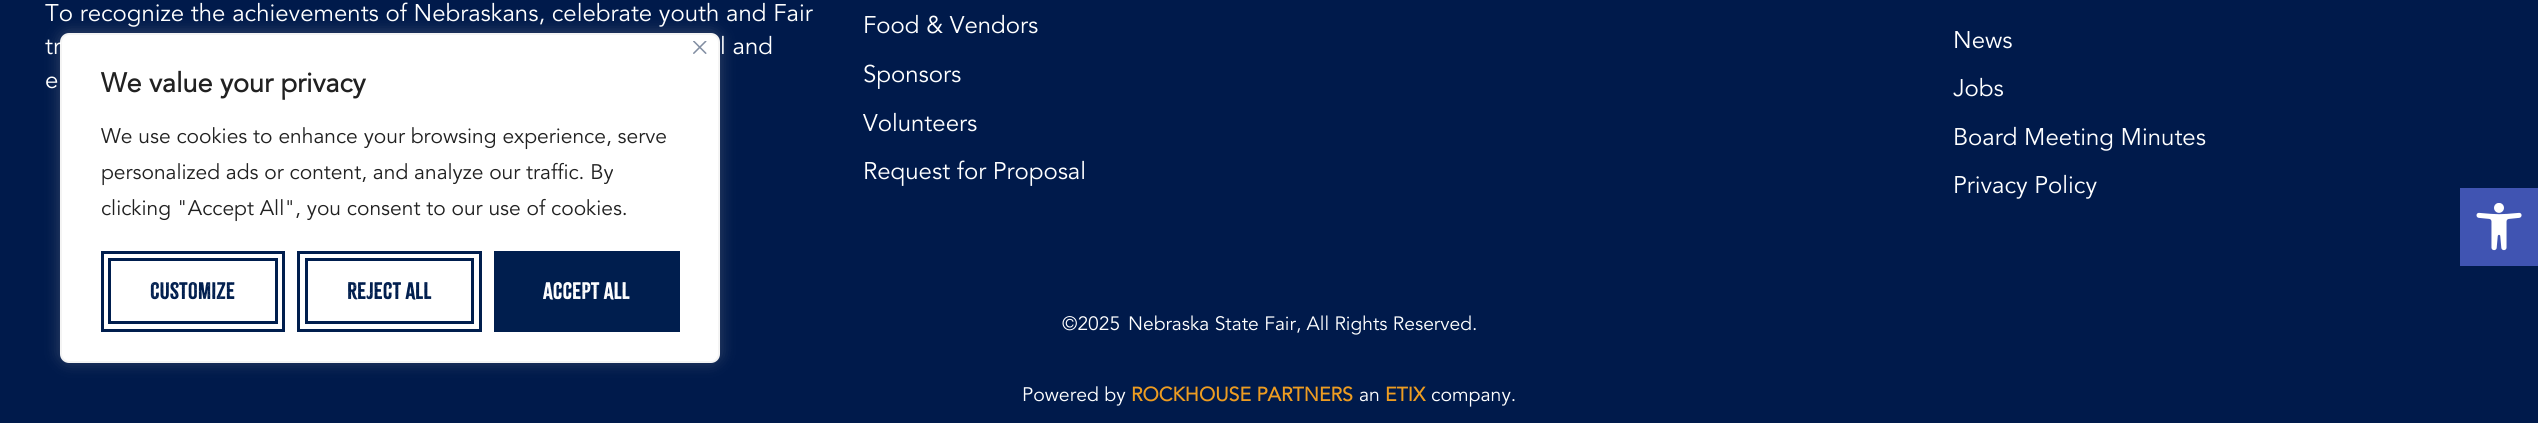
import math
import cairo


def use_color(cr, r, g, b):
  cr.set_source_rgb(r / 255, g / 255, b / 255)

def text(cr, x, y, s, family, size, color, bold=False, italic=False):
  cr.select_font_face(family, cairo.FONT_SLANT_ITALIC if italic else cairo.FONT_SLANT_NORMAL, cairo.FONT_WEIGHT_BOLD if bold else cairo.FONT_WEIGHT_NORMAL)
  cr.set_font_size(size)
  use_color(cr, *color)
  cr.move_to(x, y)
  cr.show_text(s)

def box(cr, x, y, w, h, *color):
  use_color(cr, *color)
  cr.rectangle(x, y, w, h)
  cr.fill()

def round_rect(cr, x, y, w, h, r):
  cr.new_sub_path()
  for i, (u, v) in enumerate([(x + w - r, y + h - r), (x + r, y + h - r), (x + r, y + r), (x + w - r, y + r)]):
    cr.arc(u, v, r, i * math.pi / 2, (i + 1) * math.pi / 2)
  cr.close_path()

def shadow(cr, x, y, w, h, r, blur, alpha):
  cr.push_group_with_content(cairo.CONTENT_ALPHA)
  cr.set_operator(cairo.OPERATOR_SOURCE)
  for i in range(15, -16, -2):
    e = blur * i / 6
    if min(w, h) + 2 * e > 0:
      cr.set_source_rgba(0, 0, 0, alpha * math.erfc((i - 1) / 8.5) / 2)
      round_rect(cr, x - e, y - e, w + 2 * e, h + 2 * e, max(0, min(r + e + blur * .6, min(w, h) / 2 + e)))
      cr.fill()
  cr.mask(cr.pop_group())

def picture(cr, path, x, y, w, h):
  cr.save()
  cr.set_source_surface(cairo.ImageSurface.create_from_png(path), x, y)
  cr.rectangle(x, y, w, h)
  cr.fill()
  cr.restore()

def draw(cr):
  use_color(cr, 0, 26, 75)
  cr.paint()
  use_color(cr, 172, 171, 171)
  shadow(cr, 60, 32, 660, 330, 9, 7.5, 0.3)
  use_color(cr, 255, 255, 255)
  round_rect(cr, 61, 34, 658, 328, 8)
  cr.fill_preserve()
  use_color(cr, 244, 244, 244)
  cr.stroke()
  picture(cr, "img_01.png", 693, 41, 14, 13)
  cr.rectangle(102.5, 252.5, 181, 78)
  use_color(cr, 0, 30, 78)
  cr.set_line_width(3)
  cr.stroke()
  cr.rectangle(109.5, 259.5, 167, 63)
  cr.stroke()
  cr.rectangle(298.5, 252.5, 182, 78)
  cr.stroke()
  cr.rectangle(306.5, 259.5, 166, 63)
  cr.stroke()
  box(cr, 494, 251, 186, 81, 0, 30, 78)
  box(cr, 2460, 188, 78, 78, 64, 84, 178)
  picture(cr, "img_02.png", 2476, 203, 46, 48)
  text(cr, 45, 21, "To recognize the achievements of Nebraskans, celebrate youth and Fair", "Avenir", 24, (255, 255, 255))
  text(cr, 45, 54, "tr", "Avenir", 24, (255, 255, 255))
  text(cr, 720, 54, "l and", "Avenir", 24, (255, 255, 255))
  text(cr, 45, 88, "e", "Avenir", 24, (255, 255, 255))
  text(cr, 863, 33, "Food & Vendors", "Avenir", 24, (255, 255, 255))
  text(cr, 863, 82, "Sponsors", "Avenir", 24, (255, 255, 255))
  text(cr, 863, 131, "Volunteers", "Avenir", 24, (255, 255, 255))
  text(cr, 863, 179, "Request for Proposal", "Avenir", 24, (255, 255, 255))
  text(cr, 1953, 48, "News", "Avenir", 24, (255, 255, 255))
  text(cr, 1953, 96, "Jobs", "Avenir", 24, (255, 255, 255))
  text(cr, 1953, 145, "Board Meeting Minutes", "Avenir", 24, (255, 255, 255))
  text(cr, 1953, 193, "Privacy Policy", "Avenir", 24, (255, 255, 255))
  text(cr, 1062, 330, "©2025", "Avenir", 19.25, (255, 255, 255))
  text(cr, 1128, 330, "Nebraska State Fair, All Rights Reserved.", "Avenir", 19.25, (255, 255, 255))
  text(cr, 1022, 401, "Powered by", "Avenir", 19.5, (255, 255, 255))
  text(cr, 1131, 401, "ROCKHOUSE PARTNERS", "Avenir", 19.5, (237, 156, 33), bold=True)
  text(cr, 1359, 401, "an", "Avenir", 19.5, (255, 255, 255))
  text(cr, 1385, 401, "ETIX", "Avenir", 19.5, (237, 156, 33), bold=True)
  text(cr, 1431, 401, "company.", "Avenir", 19.5, (255, 255, 255))
  text(cr, 101, 92, "We value your privacy", "Avenir", 27, (33, 33, 33), bold=True)
  text(cr, 101, 143, "We use cookies to enhance your browsing experience, serve", "Avenir", 21, (33, 33, 33))
  text(cr, 101, 179, "personalized ads or content, and analyze our traffic. By", "Avenir", 21, (33, 33, 33))
  text(cr, 101, 215, "clicking \"Accept All\", you consent to our use of cookies.", "Avenir", 21, (33, 33, 33))
  text(cr, 150, 299, "Customize", "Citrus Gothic", 21, (0, 30, 78))
  text(cr, 347, 299, "Reject All", "Citrus Gothic", 21, (0, 30, 78))
  text(cr, 543, 299, "Accept All", "Citrus Gothic", 21, (255, 255, 255))


surface = cairo.ImageSurface(cairo.FORMAT_RGB24, 2538, 423)
cr = cairo.Context(surface)
options = cairo.FontOptions()
options.set_hint_metrics(cairo.HINT_METRICS_OFF)
options.set_hint_style(cairo.HINT_STYLE_NONE)
cr.set_font_options(options)
cr.set_miter_limit(4)
draw(cr)
surface.write_to_png("out.png")
